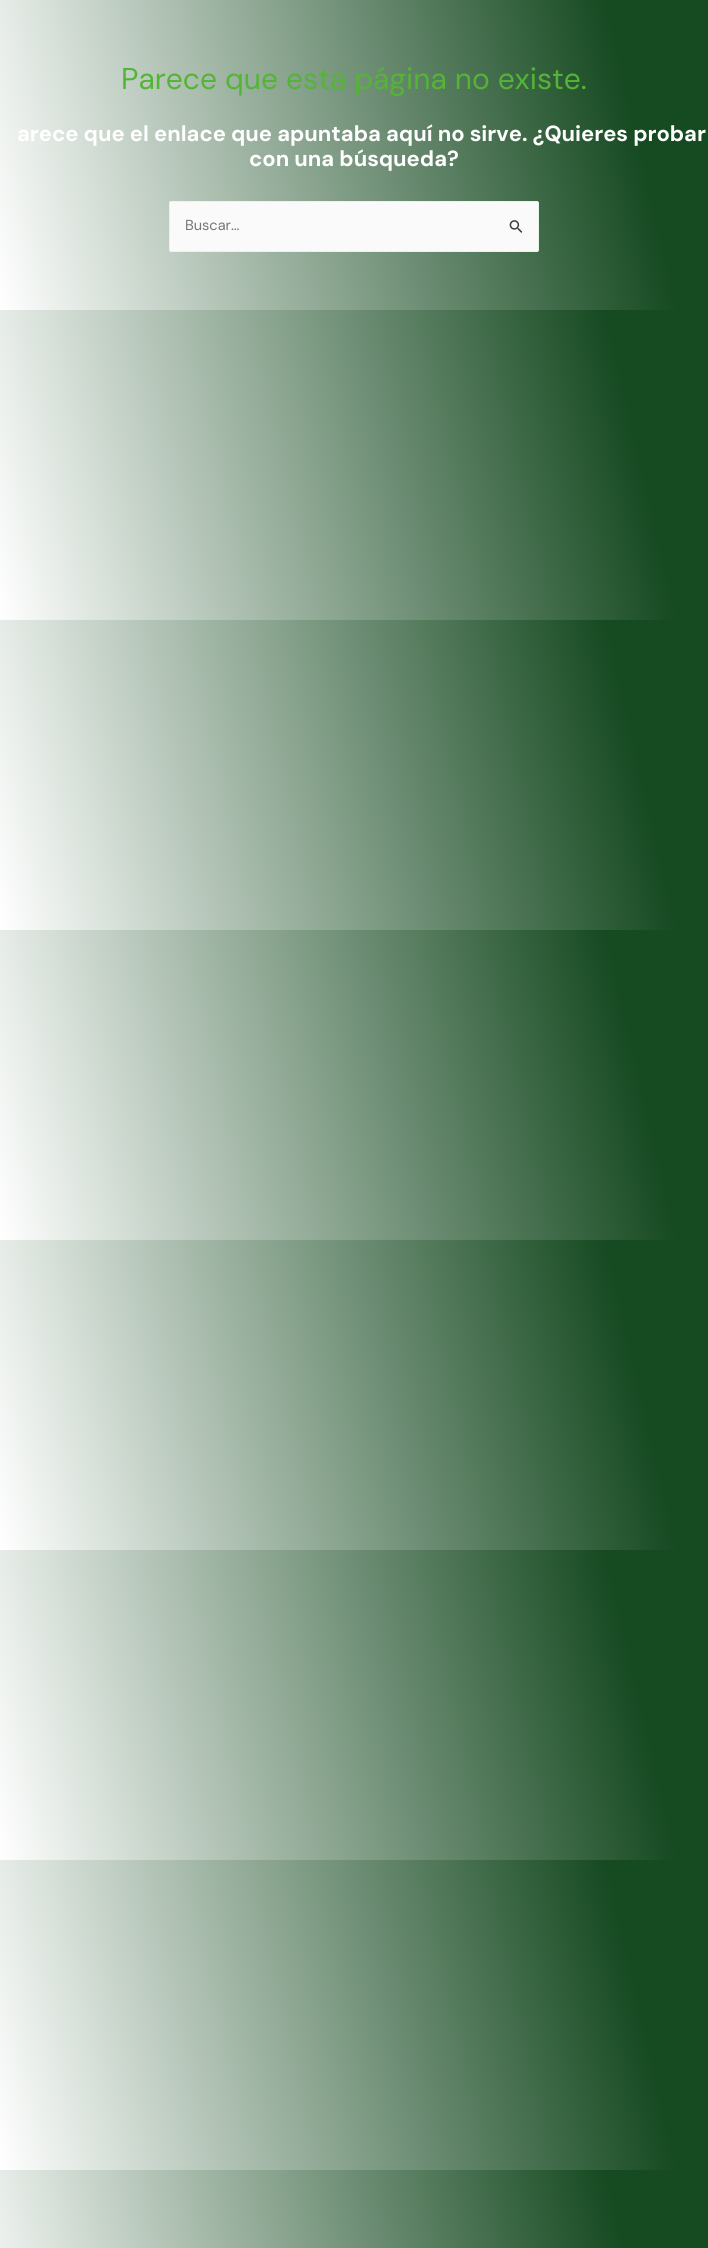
import math
import cairo


def use_color(cr, r, g, b):
  cr.set_source_rgb(r / 255, g / 255, b / 255)

def text(cr, x, y, s, family, size, color, bold=False, italic=False):
  cr.select_font_face(family, cairo.FONT_SLANT_ITALIC if italic else cairo.FONT_SLANT_NORMAL, cairo.FONT_WEIGHT_BOLD if bold else cairo.FONT_WEIGHT_NORMAL)
  cr.set_font_size(size)
  use_color(cr, *color)
  cr.move_to(x, y)
  cr.show_text(s)

def round_rect(cr, x, y, w, h, r):
  cr.new_sub_path()
  for i, (u, v) in enumerate([(x + w - r, y + h - r), (x + r, y + h - r), (x + r, y + r), (x + w - r, y + r)]):
    cr.arc(u, v, r, i * math.pi / 2, (i + 1) * math.pi / 2)
  cr.close_path()

def picture(cr, path, x, y, w, h):
  cr.save()
  cr.set_source_surface(cairo.ImageSurface.create_from_png(path), x, y)
  cr.rectangle(x, y, w, h)
  cr.fill()
  cr.restore()

def draw(cr):
  use_color(cr, 255, 255, 255)
  cr.paint()
  gradient = cairo.LinearGradient(-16, 240, 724, 70)
  gradient.add_color_stop_rgba(0, 1, 1, 1, 1)
  gradient.add_color_stop_rgba(0.87, 0.086, 0.29, 0.129, 1)
  cr.set_source(gradient)
  cr.rectangle(0, 0, 708, 310)
  cr.fill()
  gradient = cairo.LinearGradient(-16, 550, 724, 380)
  gradient.add_color_stop_rgba(0, 1, 1, 1, 1)
  gradient.add_color_stop_rgba(0.87, 0.086, 0.29, 0.129, 1)
  cr.set_source(gradient)
  cr.rectangle(0, 310, 708, 310)
  cr.fill()
  gradient = cairo.LinearGradient(-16, 860, 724, 690)
  gradient.add_color_stop_rgba(0, 1, 1, 1, 1)
  gradient.add_color_stop_rgba(0.87, 0.086, 0.29, 0.129, 1)
  cr.set_source(gradient)
  cr.rectangle(0, 620, 708, 310)
  cr.fill()
  gradient = cairo.LinearGradient(-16, 1170, 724, 1000)
  gradient.add_color_stop_rgba(0, 1, 1, 1, 1)
  gradient.add_color_stop_rgba(0.87, 0.086, 0.29, 0.129, 1)
  cr.set_source(gradient)
  cr.rectangle(0, 930, 708, 310)
  cr.fill()
  gradient = cairo.LinearGradient(-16, 1480, 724, 1310)
  gradient.add_color_stop_rgba(0, 1, 1, 1, 1)
  gradient.add_color_stop_rgba(0.87, 0.086, 0.29, 0.129, 1)
  cr.set_source(gradient)
  cr.rectangle(0, 1240, 708, 310)
  cr.fill()
  gradient = cairo.LinearGradient(-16, 1790, 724, 1620)
  gradient.add_color_stop_rgba(0, 1, 1, 1, 1)
  gradient.add_color_stop_rgba(0.87, 0.086, 0.29, 0.129, 1)
  cr.set_source(gradient)
  cr.rectangle(0, 1550, 708, 310)
  cr.fill()
  gradient = cairo.LinearGradient(-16, 2100, 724, 1930)
  gradient.add_color_stop_rgba(0, 1, 1, 1, 1)
  gradient.add_color_stop_rgba(0.87, 0.086, 0.29, 0.129, 1)
  cr.set_source(gradient)
  cr.rectangle(0, 1860, 708, 310)
  cr.fill()
  gradient = cairo.LinearGradient(-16, 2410, 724, 2240)
  gradient.add_color_stop_rgba(0, 1, 1, 1, 1)
  gradient.add_color_stop_rgba(0.87, 0.086, 0.29, 0.129, 1)
  cr.set_source(gradient)
  cr.rectangle(0, 2170, 708, 78)
  cr.fill()
  use_color(cr, 250, 250, 250)
  round_rect(cr, 169.5, 201.5, 369, 50, 1.5)
  cr.fill_preserve()
  use_color(cr, 230, 245, 232)
  cr.set_line_width(1)
  cr.stroke()
  picture(cr, "img_01.png", 509, 220, 13, 13)
  text(cr, 121, 89, "Parece que esta página no existe.", "DM Sans", 30, (84, 180, 53))
  text(cr, 17, 141, "arece que el enlace que apuntaba aquí no sirve. ¿Quieres probar", "DM Sans", 21.9, (255, 255, 255), bold=True)
  text(cr, 249, 166, "con una búsqueda?", "DM Sans", 21.9, (255, 255, 255), bold=True)
  text(cr, 185, 230, "Buscar...", "DM Sans", 14.5, (117, 117, 117))


surface = cairo.ImageSurface(cairo.FORMAT_RGB24, 708, 2248)
cr = cairo.Context(surface)
options = cairo.FontOptions()
options.set_hint_metrics(cairo.HINT_METRICS_OFF)
options.set_hint_style(cairo.HINT_STYLE_NONE)
cr.set_font_options(options)
cr.set_miter_limit(4)
draw(cr)
surface.write_to_png("out.png")
